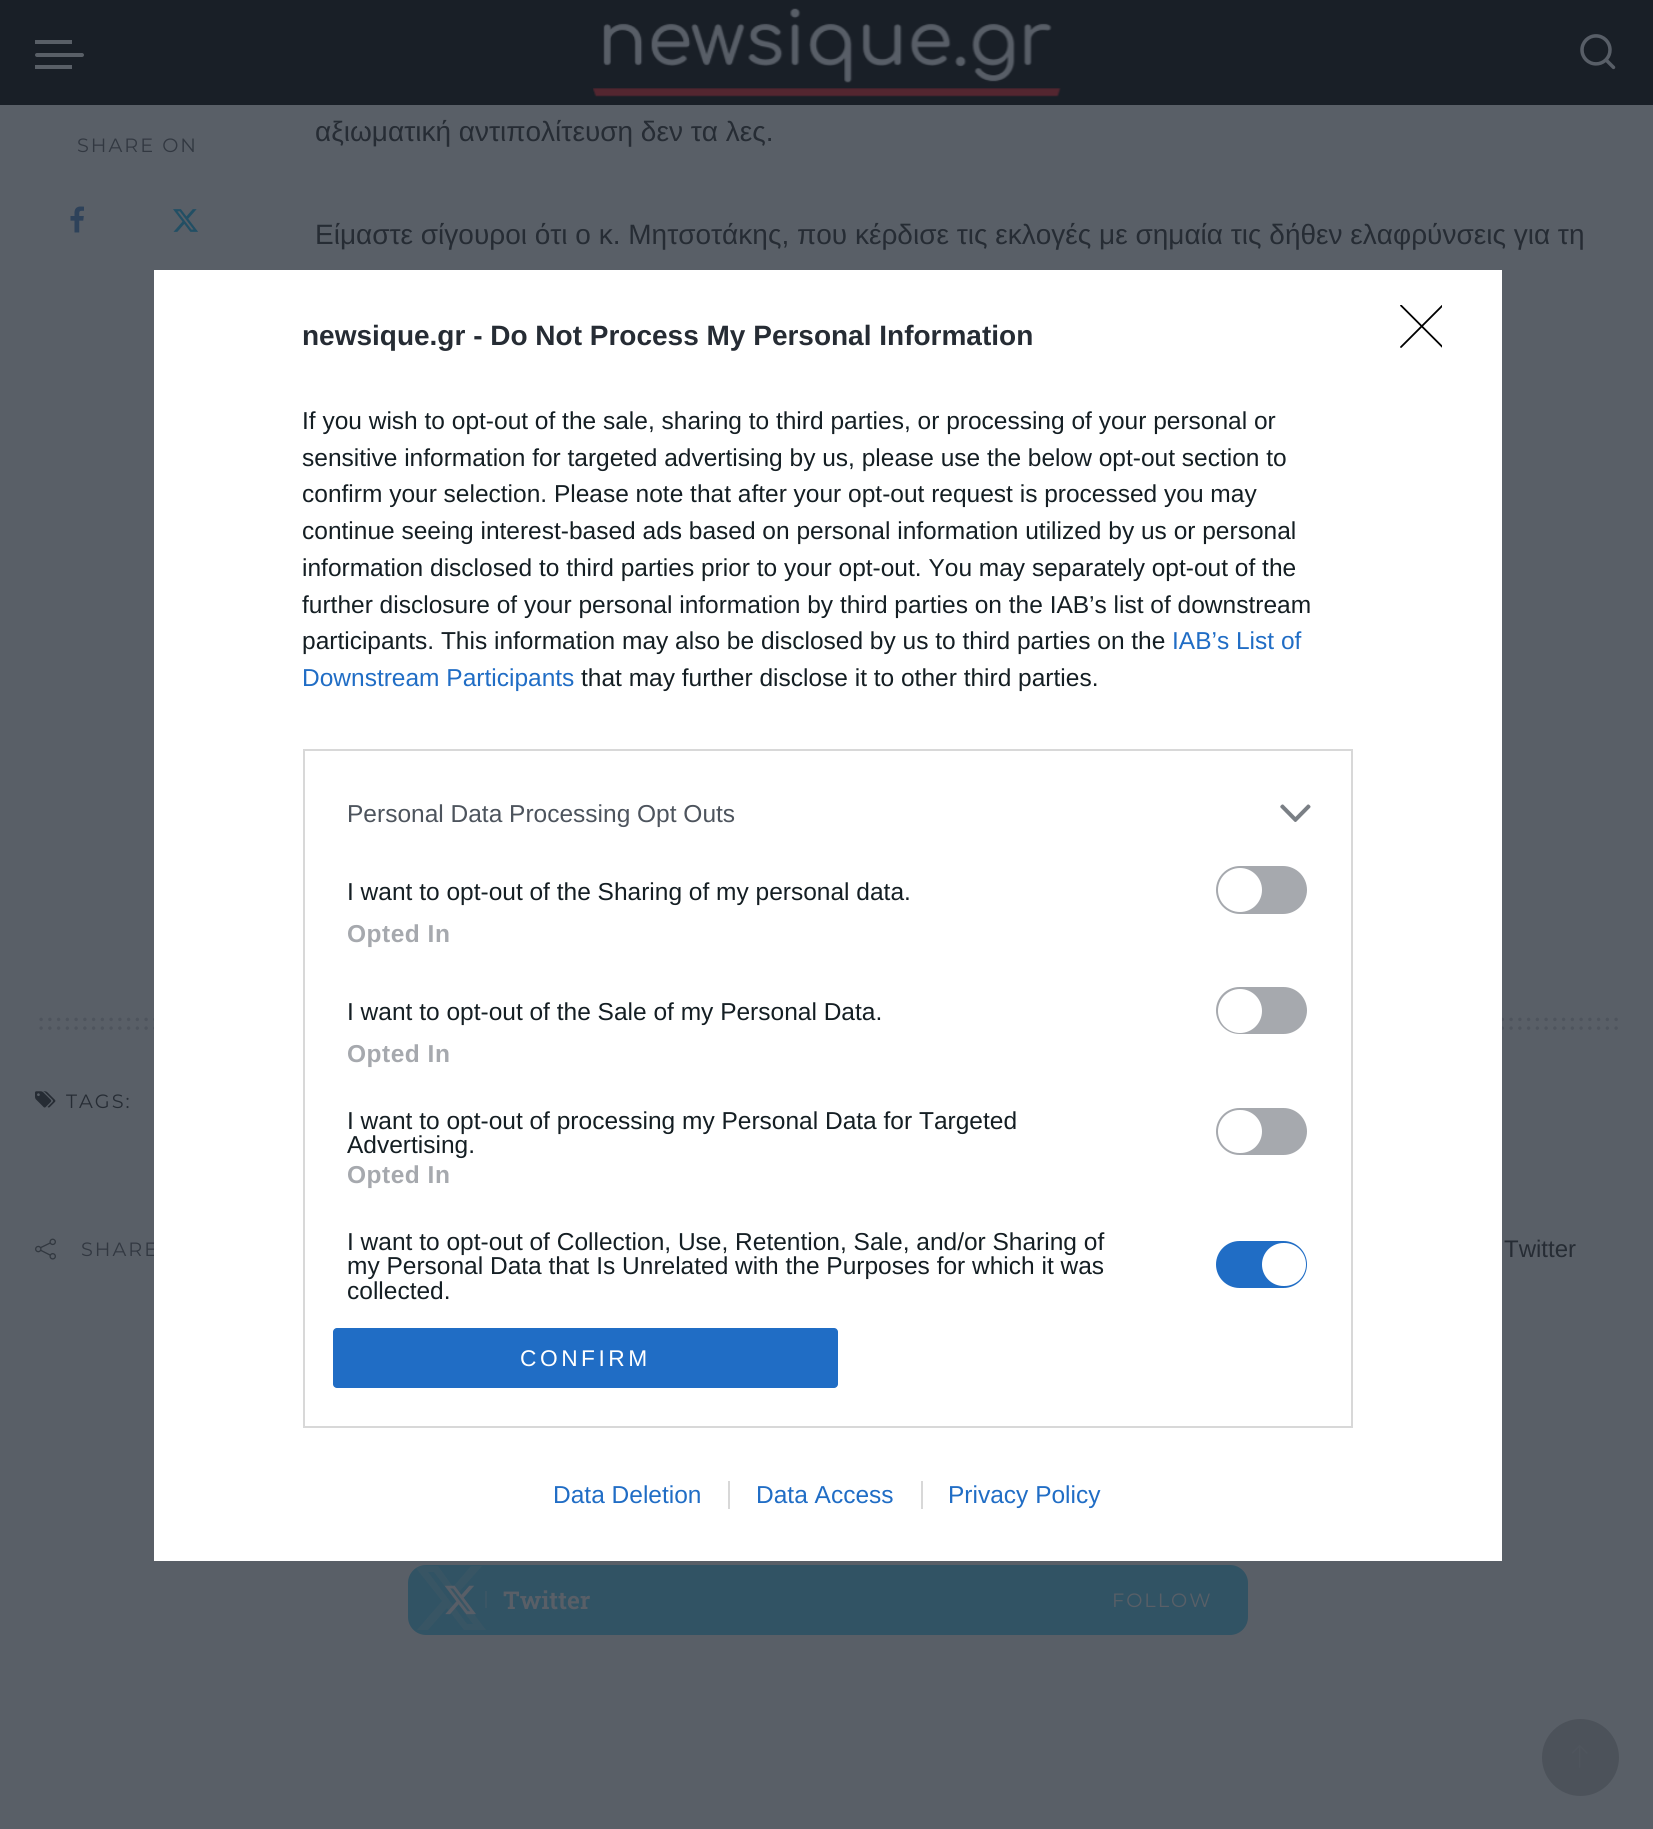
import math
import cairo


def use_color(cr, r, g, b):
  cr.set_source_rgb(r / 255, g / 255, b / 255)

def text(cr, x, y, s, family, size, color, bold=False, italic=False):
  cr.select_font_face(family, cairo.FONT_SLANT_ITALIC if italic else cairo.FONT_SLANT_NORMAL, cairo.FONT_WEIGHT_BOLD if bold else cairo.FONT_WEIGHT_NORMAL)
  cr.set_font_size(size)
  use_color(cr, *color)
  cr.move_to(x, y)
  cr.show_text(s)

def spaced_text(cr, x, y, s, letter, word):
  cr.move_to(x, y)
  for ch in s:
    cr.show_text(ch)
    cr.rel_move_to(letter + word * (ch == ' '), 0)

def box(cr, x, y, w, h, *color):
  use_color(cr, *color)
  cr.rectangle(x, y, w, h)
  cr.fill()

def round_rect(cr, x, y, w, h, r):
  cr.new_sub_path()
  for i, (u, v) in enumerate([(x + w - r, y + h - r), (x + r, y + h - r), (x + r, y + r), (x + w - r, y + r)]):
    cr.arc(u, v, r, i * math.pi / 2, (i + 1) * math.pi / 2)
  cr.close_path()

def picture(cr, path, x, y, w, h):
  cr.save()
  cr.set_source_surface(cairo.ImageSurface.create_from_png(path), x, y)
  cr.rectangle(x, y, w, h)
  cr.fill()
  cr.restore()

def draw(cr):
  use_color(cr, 89, 95, 103)
  cr.paint()
  box(cr, 0, 0, 1653, 105, 25, 31, 39)
  use_color(cr, 89, 95, 103)
  round_rect(cr, 35, 53, 49, 4, 2)
  cr.fill()
  box(cr, 35, 40, 37, 4, 89, 95, 103)
  box(cr, 35, 65, 37, 4, 89, 95, 103)
  picture(cr, "img_01.png", 593, 8, 468, 89)
  picture(cr, "img_02.png", 1580, 34, 36, 36)
  picture(cr, "img_03.png", 70, 206, 14, 27)
  picture(cr, "img_04.png", 173, 209, 25, 23)
  cr.new_path()
  cr.move_to(41.1, 1019.4)
  cr.line_to(1616.5, 1019.4)
  use_color(cr, 78, 84, 93)
  cr.set_line_width(3.5)
  cr.set_line_cap(cairo.LINE_CAP_ROUND)
  cr.set_dash([0, 8.75])
  cr.stroke()
  cr.new_path()
  cr.move_to(41.1, 1028.1)
  cr.line_to(1616.5, 1028.1)
  cr.stroke()
  picture(cr, "img_05.png", 35, 1091, 21, 17)
  picture(cr, "img_06.png", 35, 1238, 21, 22)
  use_color(cr, 49, 83, 100)
  round_rect(cr, 408, 1565, 840, 70, 18)
  cr.fill()
  box(cr, 485, 1591, 2, 17, 59, 86, 101)
  cr.set_source_rgba(0.349, 0.373, 0.404, 0.2)
  cr.set_fill_rule(cairo.FILL_RULE_EVEN_ODD)
  cr.new_path()
  cr.move_to(471, 1566)
  cr.line_to(482, 1566)
  cr.line_to(458, 1593)
  cr.line_to(486, 1630)
  cr.line_to(464, 1630)
  cr.line_to(447, 1608)
  cr.line_to(428, 1630)
  cr.line_to(417, 1630)
  cr.line_to(442, 1601)
  cr.line_to(416, 1568)
  cr.curve_to(422, 1564, 432, 1566, 438, 1566)
  cr.line_to(453, 1587)
  cr.close_path()
  cr.move_to(467, 1624)
  cr.line_to(428, 1572)
  cr.line_to(434, 1572)
  cr.line_to(473, 1624)
  cr.close_path()
  cr.fill()
  picture(cr, "img_07.png", 444, 1585, 32, 30)
  use_color(cr, 76, 82, 90)
  cr.arc(1580.5, 1757.5, 38.5, 0, 2 * math.pi)
  cr.fill()
  picture(cr, "img_09.png", 1572, 1745, 16, 23)
  cr.select_font_face("Montserrat")
  cr.set_font_size(19.25)
  use_color(cr, 50, 56, 65)
  spaced_text(cr, 77, 152, "SHARE ON", 2, 0)
  text(cr, 315, 141, "αξιωματική αντιπολίτευση δεν τα λες.", "Liberation Sans", 28, (38, 44, 52))
  text(cr, 315, 244, "Είμαστε σίγουροι ότι ο κ. Μητσοτάκης, που κέρδισε τις εκλογές με σημαία τις δήθεν ελαφρύνσεις για τη", "Liberation Sans", 28, (38, 44, 52))
  cr.select_font_face("Montserrat")
  cr.set_font_size(19.25)
  spaced_text(cr, 66, 1108, "TAGS:", 2, 0)
  use_color(cr, 50, 56, 65)
  spaced_text(cr, 81, 1256, "SHARE", 2, 0)
  text(cr, 1504, 1257, "Twitter", "Liberation Sans", 24, (38, 44, 52))
  text(cr, 503, 1609, "Twitter", "Roboto Slab SemiBold", 24.5, (89, 95, 103))
  cr.select_font_face("Montserrat")
  cr.set_font_size(19.25)
  spaced_text(cr, 1112, 1607, "FOLLOW", 2, 0)
  box(cr, 154, 270, 1348, 1291, 255, 255, 255)
  text(cr, 302, 345, "newsique.gr - Do Not Process My Personal Information", "Liberation Sans", 28, (38, 44, 52), bold=True)
  text(cr, 302, 429, "If you wish to opt-out of the sale, sharing to third parties, or processing of your personal or", "Liberation Sans", 24.5, (20, 30, 35))
  text(cr, 302, 466, "sensitive information for targeted advertising by us, please use the below opt-out section to", "Liberation Sans", 24.5, (20, 30, 35))
  text(cr, 302, 502, "confirm your selection. Please note that after your opt-out request is processed you may", "Liberation Sans", 24.5, (20, 30, 35))
  text(cr, 302, 539, "continue seeing interest-based ads based on personal information utilized by us or personal", "Liberation Sans", 24.5, (20, 30, 35))
  text(cr, 302, 576, "information disclosed to third parties prior to your opt-out. You may separately opt-out of the", "Liberation Sans", 24.5, (20, 30, 35))
  text(cr, 302, 613, "further disclosure of your personal information by third parties on the IAB’s list of downstream", "Liberation Sans", 24.5, (20, 30, 35))
  text(cr, 302, 649, "participants. This information may also be disclosed by us to third parties on the", "Liberation Sans", 24.5, (20, 30, 35))
  text(cr, 1172, 649, "IAB’s List of", "Liberation Sans", 24.5, (32, 109, 197))
  text(cr, 302, 686, "Downstream Participants", "Liberation Sans", 24.5, (32, 109, 197))
  text(cr, 581, 686, "that may further disclose it to other third parties.", "Liberation Sans", 24.5, (20, 30, 35))
  cr.rectangle(304, 750, 1048, 677)
  use_color(cr, 216, 216, 216)
  cr.set_line_width(2)
  cr.set_line_cap(cairo.LINE_CAP_BUTT)
  cr.set_dash([])
  cr.stroke()
  text(cr, 347, 822, "Personal Data Processing Opt Outs", "Liberation Sans", 24.5, (77, 84, 93))
  picture(cr, "img_08.png", 1280, 804, 31, 18)
  text(cr, 347, 900, "I want to opt-out of the Sharing of my personal data.", "Liberation Sans", 24.5, (20, 30, 35))
  use_color(cr, 166, 169, 174)
  round_rect(cr, 1217, 867, 89, 46, 23)
  cr.fill_preserve()
  cr.stroke()
  use_color(cr, 255, 255, 255)
  cr.arc(1240, 890, 22, 0, 2 * math.pi)
  cr.fill()
  cr.select_font_face("Liberation Sans", cairo.FONT_SLANT_NORMAL, cairo.FONT_WEIGHT_BOLD)
  use_color(cr, 166, 169, 174)
  spaced_text(cr, 347, 942, "Opted In", 0.5, 0)
  text(cr, 347, 1020, "I want to opt-out of the Sale of my Personal Data.", "Liberation Sans", 24.5, (20, 30, 35))
  use_color(cr, 166, 169, 174)
  round_rect(cr, 1217, 988, 89, 45, 22.5)
  cr.fill_preserve()
  cr.stroke()
  use_color(cr, 255, 255, 255)
  cr.arc(1240, 1011, 22, 0, 2 * math.pi)
  cr.fill()
  cr.select_font_face("Liberation Sans", cairo.FONT_SLANT_NORMAL, cairo.FONT_WEIGHT_BOLD)
  use_color(cr, 166, 169, 174)
  spaced_text(cr, 347, 1062, "Opted In", 0.5, 0)
  text(cr, 347, 1129, "I want to opt-out of processing my Personal Data for Targeted", "Liberation Sans", 24.5, (20, 30, 35))
  text(cr, 347, 1153, "Advertising.", "Liberation Sans", 24.5, (20, 30, 35))
  use_color(cr, 166, 169, 174)
  round_rect(cr, 1217, 1109, 89, 45, 22.5)
  cr.fill_preserve()
  cr.stroke()
  use_color(cr, 255, 255, 255)
  round_rect(cr, 1218, 1110, 44, 43, 21.5)
  cr.fill()
  cr.select_font_face("Liberation Sans", cairo.FONT_SLANT_NORMAL, cairo.FONT_WEIGHT_BOLD)
  use_color(cr, 166, 169, 174)
  spaced_text(cr, 347, 1183, "Opted In", 0.5, 0)
  text(cr, 347, 1250, "I want to opt-out of Collection, Use, Retention, Sale, and/or Sharing of", "Liberation Sans", 24.5, (20, 30, 35))
  text(cr, 347, 1274, "my Personal Data that Is Unrelated with the Purposes for which it was", "Liberation Sans", 24.5, (20, 30, 35))
  text(cr, 347, 1299, "collected.", "Liberation Sans", 24.5, (20, 30, 35))
  use_color(cr, 32, 109, 197)
  round_rect(cr, 1217, 1242, 89, 45, 22.5)
  cr.fill_preserve()
  cr.stroke()
  use_color(cr, 255, 255, 255)
  round_rect(cr, 1262, 1243, 44, 43, 21.5)
  cr.fill()
  use_color(cr, 32, 109, 197)
  round_rect(cr, 333, 1328, 505, 60, 4)
  cr.fill()
  cr.set_font_size(22.75)
  use_color(cr, 255, 255, 255)
  spaced_text(cr, 520, 1366, "CONFIRM", 3.5, 0)
  cr.save()
  cr.set_fill_rule(cairo.FILL_RULE_WINDING)
  cr.rectangle(1400, 305, 42, 43)
  cr.clip()
  cr.new_path()
  cr.move_to(1401, 305.5)
  cr.line_to(1442.5, 347)
  cr.move_to(1442.5, 305.5)
  cr.line_to(1401, 347)
  use_color(cr, 0, 0, 0)
  cr.set_line_width(1.8)
  cr.set_line_cap(cairo.LINE_CAP_ROUND)
  cr.set_line_join(cairo.LINE_JOIN_ROUND)
  cr.stroke()
  cr.restore()
  text(cr, 553, 1503, "Data Deletion", "Liberation Sans", 24.5, (32, 109, 197))
  text(cr, 756, 1503, "Data Access", "Liberation Sans", 24.5, (32, 109, 197))
  box(cr, 728, 1481, 2, 28, 216, 216, 216)
  text(cr, 948, 1503, "Privacy Policy", "Liberation Sans", 24.5, (32, 109, 197))
  box(cr, 921, 1481, 2, 28, 216, 216, 216)


surface = cairo.ImageSurface(cairo.FORMAT_RGB24, 1653, 1829)
cr = cairo.Context(surface)
options = cairo.FontOptions()
options.set_hint_metrics(cairo.HINT_METRICS_OFF)
options.set_hint_style(cairo.HINT_STYLE_NONE)
cr.set_font_options(options)
cr.set_miter_limit(4)
draw(cr)
surface.write_to_png("out.png")
